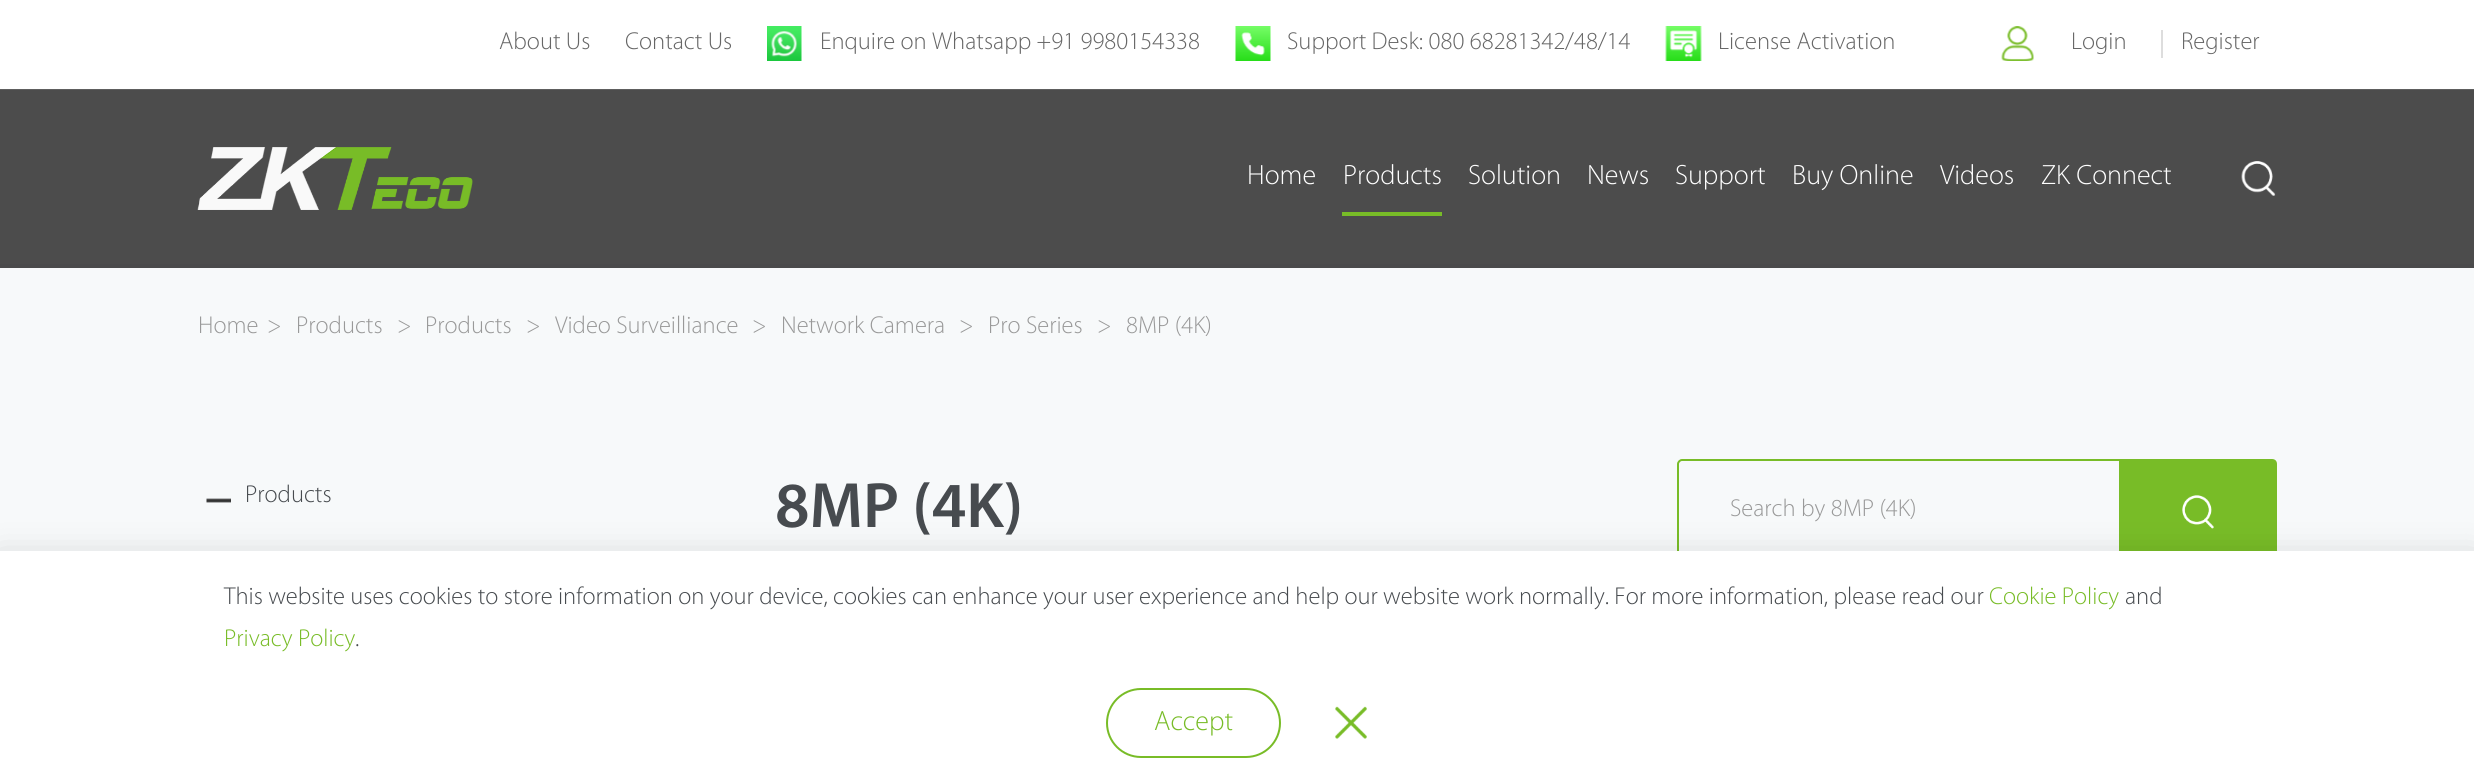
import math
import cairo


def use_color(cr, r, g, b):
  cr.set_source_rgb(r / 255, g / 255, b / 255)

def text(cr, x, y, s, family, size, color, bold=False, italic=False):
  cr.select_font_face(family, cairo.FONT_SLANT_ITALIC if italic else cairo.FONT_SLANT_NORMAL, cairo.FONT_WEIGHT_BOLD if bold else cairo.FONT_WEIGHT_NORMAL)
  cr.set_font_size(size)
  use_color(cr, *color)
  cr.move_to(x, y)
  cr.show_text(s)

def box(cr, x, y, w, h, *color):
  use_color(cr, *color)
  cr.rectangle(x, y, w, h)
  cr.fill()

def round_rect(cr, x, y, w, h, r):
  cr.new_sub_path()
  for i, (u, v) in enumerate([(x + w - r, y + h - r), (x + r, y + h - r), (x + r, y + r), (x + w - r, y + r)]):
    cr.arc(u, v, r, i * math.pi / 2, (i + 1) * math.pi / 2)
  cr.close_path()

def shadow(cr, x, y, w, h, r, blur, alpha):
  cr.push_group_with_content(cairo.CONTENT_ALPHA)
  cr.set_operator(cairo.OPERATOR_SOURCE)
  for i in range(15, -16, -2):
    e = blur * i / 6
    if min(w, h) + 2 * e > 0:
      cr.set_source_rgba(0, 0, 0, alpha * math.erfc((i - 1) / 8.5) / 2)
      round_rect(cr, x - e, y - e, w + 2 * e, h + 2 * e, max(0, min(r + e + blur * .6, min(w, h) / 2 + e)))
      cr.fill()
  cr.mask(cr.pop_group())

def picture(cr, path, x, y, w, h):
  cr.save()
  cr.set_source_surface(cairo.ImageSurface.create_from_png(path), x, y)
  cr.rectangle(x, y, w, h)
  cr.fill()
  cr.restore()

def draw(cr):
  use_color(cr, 255, 255, 255)
  cr.paint()
  box(cr, 0, 264, 2474, 287, 247, 249, 250)
  cr.set_source_rgba(0, 0, 0, 0.7)
  cr.rectangle(0, 89, 2474, 179)
  cr.fill()
  cr.set_source_rgba(1, 1, 1, 0.1)
  cr.rectangle(0, 89, 2474, 1)
  cr.fill()
  picture(cr, "img_01.png", 767, 26, 35, 35)
  picture(cr, "img_02.png", 1235, 26, 36, 35)
  picture(cr, "img_03.png", 1665, 26, 37, 35)
  picture(cr, "img_04.png", 2001, 26, 33, 35)
  box(cr, 2161, 30, 2, 28, 221, 221, 221)
  picture(cr, "img_05.png", 197, 147, 276, 63)
  box(cr, 1342, 212, 100, 4, 120, 188, 39)
  picture(cr, "img_06.png", 2241, 161, 35, 35)
  picture(cr, "img_07.png", 206, 498, 25, 5)
  cr.new_path()
  cr.move_to(1682, 460)
  cr.line_to(2120, 460)
  cr.line_to(2120, 563)
  cr.line_to(1682, 563)
  cr.curve_to(1680, 563, 1678, 561, 1678, 559)
  cr.line_to(1678, 464)
  cr.curve_to(1678, 462, 1680, 460, 1682, 460)
  cr.close_path()
  cr.stroke()
  cr.new_path()
  cr.move_to(2121, 459)
  cr.line_to(2272, 459)
  cr.curve_to(2275, 459, 2277, 461, 2277, 464)
  cr.line_to(2277, 559)
  cr.curve_to(2277, 562, 2275, 564, 2272, 564)
  cr.line_to(2121, 564)
  cr.close_path()
  cr.fill()
  picture(cr, "img_08.png", 2182, 495, 32, 34)
  use_color(cr, 0, 0, 0)
  shadow(cr, 0, 560, 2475, 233, 0, 17.5, 0.2)
  box(cr, 0, 551, 2474, 233, 255, 255, 255)
  round_rect(cr, 1107, 689, 173, 68, 34)
  use_color(cr, 120, 188, 39)
  cr.stroke()
  picture(cr, "img_09.png", 1335, 706, 32, 33)
  text(cr, 499, 49, "About Us", "Myriad Light", 24.5, (102, 102, 102))
  text(cr, 625, 49, "Contact Us", "Myriad Light", 24.5, (102, 102, 102))
  text(cr, 820, 49, "Enquire on Whatsapp +91 9980154338", "Myriad Light", 24.5, (102, 102, 102))
  text(cr, 1287, 49, "Support Desk: 080 68281342/48/14", "Myriad Light", 24.5, (102, 102, 102))
  text(cr, 1718, 49, "License Activation", "Myriad Light", 24.5, (102, 102, 102))
  text(cr, 2071, 49, "Login", "Myriad Light", 24.5, (102, 102, 102))
  text(cr, 2181, 49, "Register", "Myriad Light", 24.5, (102, 102, 102))
  text(cr, 1247, 184, "Home", "Myriad Light", 28, (255, 255, 255))
  text(cr, 1343, 184, "Products", "Myriad Light", 28, (255, 255, 255))
  text(cr, 1468, 184, "Solution", "Myriad Light", 28, (255, 255, 255))
  text(cr, 1587, 184, "News", "Myriad Light", 28, (255, 255, 255))
  text(cr, 1675, 184, "Support", "Myriad Light", 28, (255, 255, 255))
  text(cr, 1792, 184, "Buy Online", "Myriad Light", 28, (255, 255, 255))
  text(cr, 1940, 184, "Videos", "Myriad Light", 28, (255, 255, 255))
  text(cr, 2041, 184, "ZK Connect", "Myriad Light", 28, (255, 255, 255))
  text(cr, 198, 333, "Home", "Myriad Light", 24.5, (153, 153, 153))
  text(cr, 267, 333, ">", "Myriad Light", 24.5, (153, 153, 153))
  text(cr, 296, 333, "Products", "Myriad Light", 24.5, (153, 153, 153))
  text(cr, 397, 333, ">", "Myriad Light", 24.5, (153, 153, 153))
  text(cr, 425, 333, "Products", "Myriad Light", 24.5, (153, 153, 153))
  text(cr, 526, 333, ">", "Myriad Light", 24.5, (153, 153, 153))
  text(cr, 555, 333, "Video Surveilliance", "Myriad Light", 24.5, (153, 153, 153))
  text(cr, 752, 333, ">", "Myriad Light", 24.5, (153, 153, 153))
  text(cr, 781, 333, "Network Camera", "Myriad Light", 24.5, (153, 153, 153))
  text(cr, 959, 333, ">", "Myriad Light", 24.5, (153, 153, 153))
  text(cr, 988, 333, "Pro Series", "Myriad Light", 24.5, (153, 153, 153))
  text(cr, 1097, 333, ">", "Myriad Light", 24.5, (153, 153, 153))
  text(cr, 1126, 333, "8MP (4K)", "Myriad Light", 24.5, (153, 153, 153))
  text(cr, 245, 502, "Products", "Myriad Light", 24.5, (71, 75, 79))
  text(cr, 775, 527, "8MP (4K)", "Myriad SemiBold", 64.5, (71, 75, 79))
  text(cr, 1730, 516, "Search by 8MP (4K)", "Myriad Light", 24.5, (153, 153, 153))
  text(cr, 224, 604, "This website uses cookies to store information on your device, cookies can enhance your user experience and help our website work normally. For more information, please read our", "Myriad Light", 24.5, (71, 75, 79))
  text(cr, 1989, 604, "Cookie Policy", "Myriad Light", 24.5, (120, 188, 39))
  text(cr, 2125, 604, "and", "Myriad Light", 24.5, (71, 75, 79))
  text(cr, 224, 646, "Privacy Policy", "Myriad Light", 24.5, (120, 188, 39))
  text(cr, 355, 646, ".", "Myriad Light", 24.5, (71, 75, 79))
  text(cr, 1154, 730, "Accept", "Myriad Light", 28, (120, 188, 39))


surface = cairo.ImageSurface(cairo.FORMAT_RGB24, 2474, 784)
cr = cairo.Context(surface)
options = cairo.FontOptions()
options.set_hint_metrics(cairo.HINT_METRICS_OFF)
options.set_hint_style(cairo.HINT_STYLE_NONE)
cr.set_font_options(options)
cr.set_miter_limit(4)
draw(cr)
surface.write_to_png("out.png")
